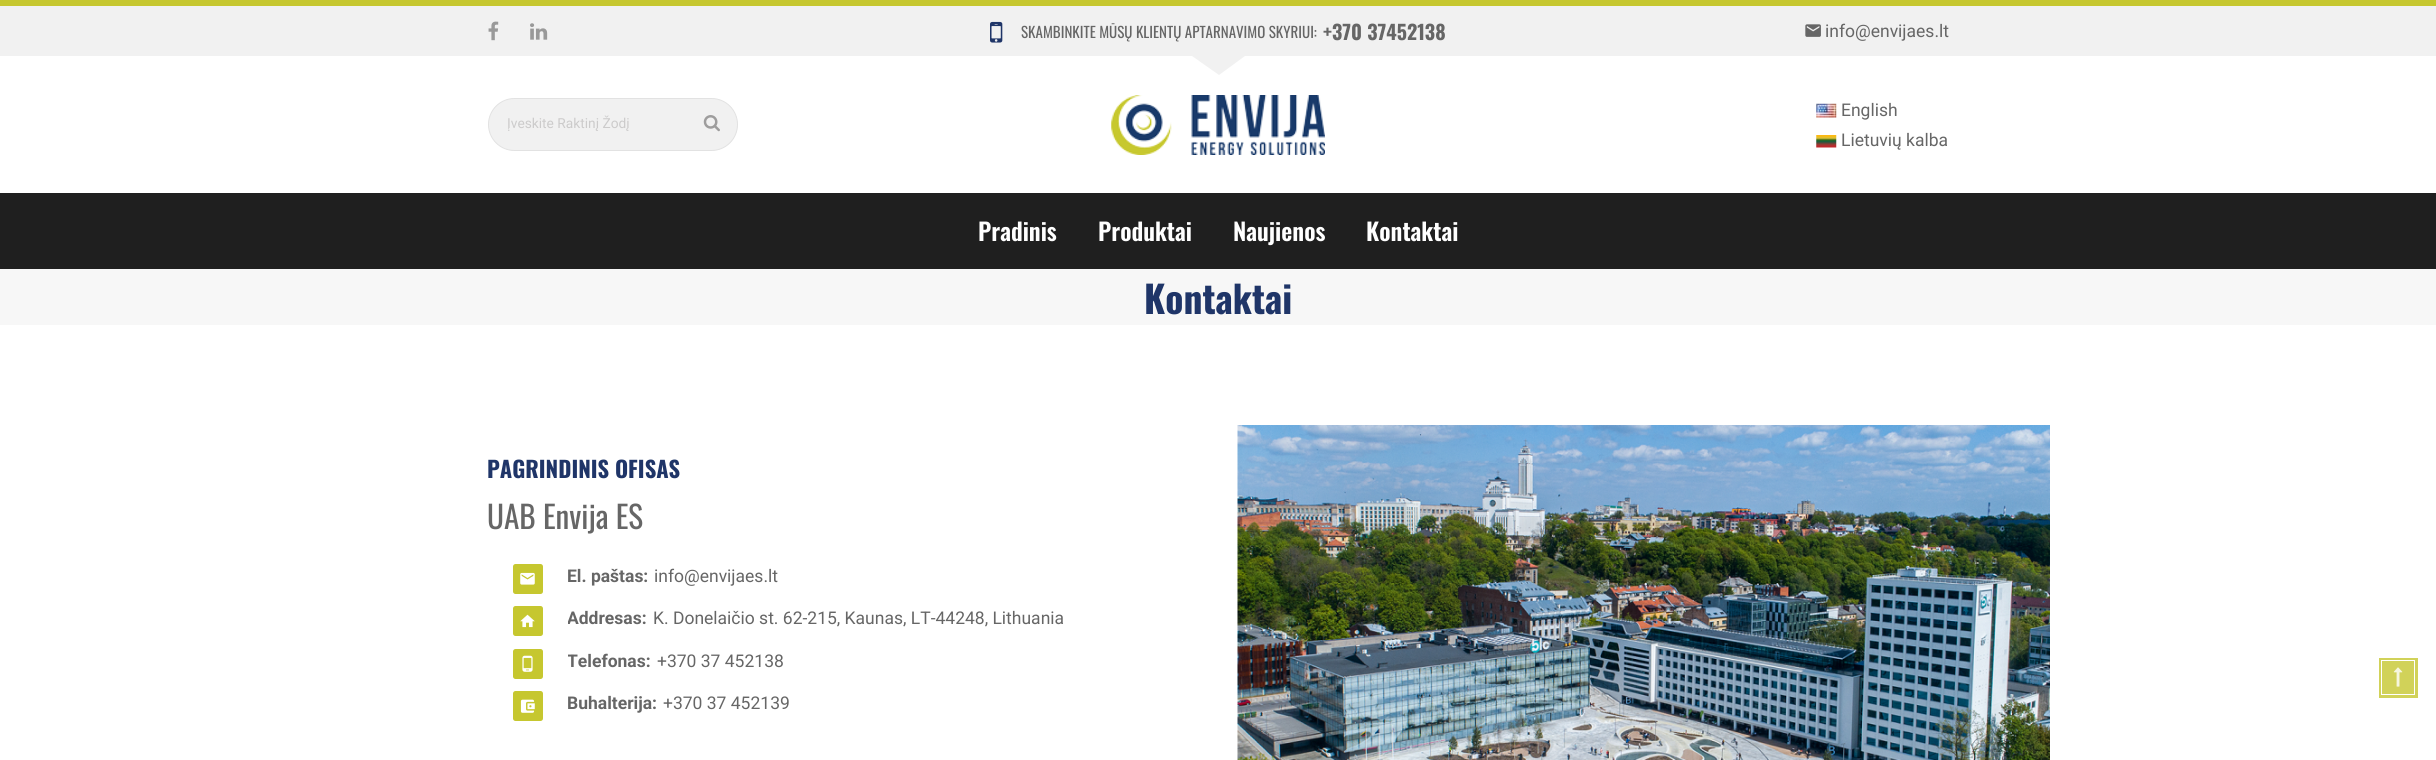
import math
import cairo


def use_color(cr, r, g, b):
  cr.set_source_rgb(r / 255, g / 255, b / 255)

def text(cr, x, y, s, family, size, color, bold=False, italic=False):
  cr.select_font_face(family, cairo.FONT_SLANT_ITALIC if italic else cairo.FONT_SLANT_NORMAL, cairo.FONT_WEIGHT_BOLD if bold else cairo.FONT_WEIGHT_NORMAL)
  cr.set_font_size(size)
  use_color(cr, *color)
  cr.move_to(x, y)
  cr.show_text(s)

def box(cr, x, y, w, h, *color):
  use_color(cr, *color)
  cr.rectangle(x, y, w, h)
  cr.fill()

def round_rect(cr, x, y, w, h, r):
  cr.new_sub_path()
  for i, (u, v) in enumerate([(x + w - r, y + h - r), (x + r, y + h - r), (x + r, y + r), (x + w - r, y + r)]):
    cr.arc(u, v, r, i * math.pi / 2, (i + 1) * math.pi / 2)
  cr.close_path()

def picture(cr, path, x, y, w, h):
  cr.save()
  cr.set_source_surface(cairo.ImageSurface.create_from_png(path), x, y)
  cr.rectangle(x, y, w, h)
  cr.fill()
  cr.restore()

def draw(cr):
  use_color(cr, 255, 255, 255)
  cr.paint()
  box(cr, 0, 6, 2436, 50, 241, 241, 241)
  box(cr, 0, 0, 2436, 6, 198, 199, 47)
  picture(cr, "img_01.png", 488, 21, 11, 20)
  picture(cr, "img_02.png", 530, 23, 18, 17)
  picture(cr, "img_03.png", 990, 21, 13, 22)
  picture(cr, "img_04.png", 1805, 24, 16, 13)
  use_color(cr, 241, 241, 241)
  cr.new_path()
  cr.move_to(1192, 56)
  cr.line_to(1245, 56)
  cr.line_to(1219, 75)
  cr.close_path()
  cr.fill()
  round_rect(cr, 488.5, 98.5, 249, 52, 26)
  cr.fill_preserve()
  use_color(cr, 226, 226, 226)
  cr.set_line_width(1)
  cr.stroke()
  picture(cr, "img_05.png", 703, 115, 17, 17)
  picture(cr, "img_06.png", 1111, 95, 214, 60)
  picture(cr, "img_07.png", 1816, 103, 21, 15)
  picture(cr, "img_08.png", 1816, 135, 21, 13)
  box(cr, 0, 193, 2436, 76, 31, 31, 31)
  box(cr, 0, 269, 2436, 56, 247, 247, 247)
  use_color(cr, 198, 199, 47)
  round_rect(cr, 513, 564, 30, 30, 2.5)
  cr.fill()
  picture(cr, "img_09.png", 520, 572, 15, 13)
  round_rect(cr, 513, 606, 30, 30, 2.5)
  cr.fill()
  picture(cr, "img_10.png", 520, 614, 15, 14)
  round_rect(cr, 513, 649, 30, 30, 2.5)
  cr.fill()
  picture(cr, "img_11.png", 522, 655, 11, 17)
  round_rect(cr, 513, 691, 30, 30, 2.5)
  cr.fill()
  picture(cr, "img_12.png", 520, 699, 15, 14)
  picture(cr, "img_13.png", 1237, 425, 813, 335)
  box(cr, 2379, 658, 39, 40, 209, 210, 89)
  picture(cr, "img_14.png", 2393, 667, 10, 20)
  cr.rectangle(2381.5, 660.5, 33, 34)
  use_color(cr, 255, 255, 255)
  cr.stroke()
  text(cr, 1021, 38, "SKAMBINKITE MŪSŲ KLIENTŲ APTARNAVIMO SKYRIUI:", "Oswald", 15, (102, 102, 102))
  text(cr, 1323, 40, "+370 37452138", "Oswald", 20, (102, 102, 102), bold=True)
  text(cr, 1825, 37, "info@envijaes.lt", "Roboto", 17.5, (102, 102, 102))
  cr.save()
  cr.rectangle(508, 115, 210, 16)
  cr.clip()
  text(cr, 507, 128, "Įveskite Raktinį Žodį", "Roboto", 13.75, (204, 203, 203))
  cr.restore()
  text(cr, 1841, 116, "English", "Roboto", 17.5, (102, 102, 102))
  text(cr, 1841, 146, "Lietuvių kalba", "Roboto", 17.5, (102, 102, 102))
  text(cr, 978, 241, "Pradinis", "Oswald SemiBold", 24, (255, 255, 255))
  text(cr, 1098, 241, "Produktai", "Oswald SemiBold", 24, (255, 255, 255))
  text(cr, 1233, 241, "Naujienos", "Oswald SemiBold", 24, (255, 255, 255))
  text(cr, 1366, 241, "Kontaktai", "Oswald SemiBold", 24, (255, 255, 255))
  text(cr, 1144, 314, "Kontaktai", "Oswald", 37.5, (31, 53, 104), bold=True)
  text(cr, 487, 478, "PAGRINDINIS OFISAS", "Oswald", 22.5, (31, 53, 104), bold=True)
  text(cr, 487, 529, "UAB Envija ES", "Oswald", 31.25, (102, 102, 102))
  text(cr, 567, 582, "El. paštas:", "Roboto", 17.5, (102, 102, 102), bold=True)
  text(cr, 654, 582, "info@envijaes.lt", "Roboto", 17.5, (102, 102, 102))
  cr.save()
  cr.rectangle(568, 606, 502, 27)
  cr.clip()
  text(cr, 567, 624, "Addresas:", "Roboto", 17.5, (102, 102, 102), bold=True)
  cr.restore()
  text(cr, 653, 624, "K. Donelaičio st. 62-215, Kaunas, LT-44248, Lithuania", "Roboto", 17.5, (102, 102, 102))
  cr.save()
  cr.rectangle(568, 649, 502, 26)
  cr.clip()
  text(cr, 567, 667, "Telefonas:", "Roboto", 17.5, (102, 102, 102), bold=True)
  cr.restore()
  text(cr, 657, 667, "+370 37 452138", "Roboto", 17.5, (102, 102, 102))
  text(cr, 567, 709, "Buhalterija:", "Roboto", 17.5, (102, 102, 102), bold=True)
  text(cr, 663, 709, "+370 37 452139", "Roboto", 17.5, (102, 102, 102))


surface = cairo.ImageSurface(cairo.FORMAT_RGB24, 2436, 760)
cr = cairo.Context(surface)
options = cairo.FontOptions()
options.set_hint_metrics(cairo.HINT_METRICS_OFF)
options.set_hint_style(cairo.HINT_STYLE_NONE)
cr.set_font_options(options)
cr.set_miter_limit(4)
draw(cr)
surface.write_to_png("out.png")
